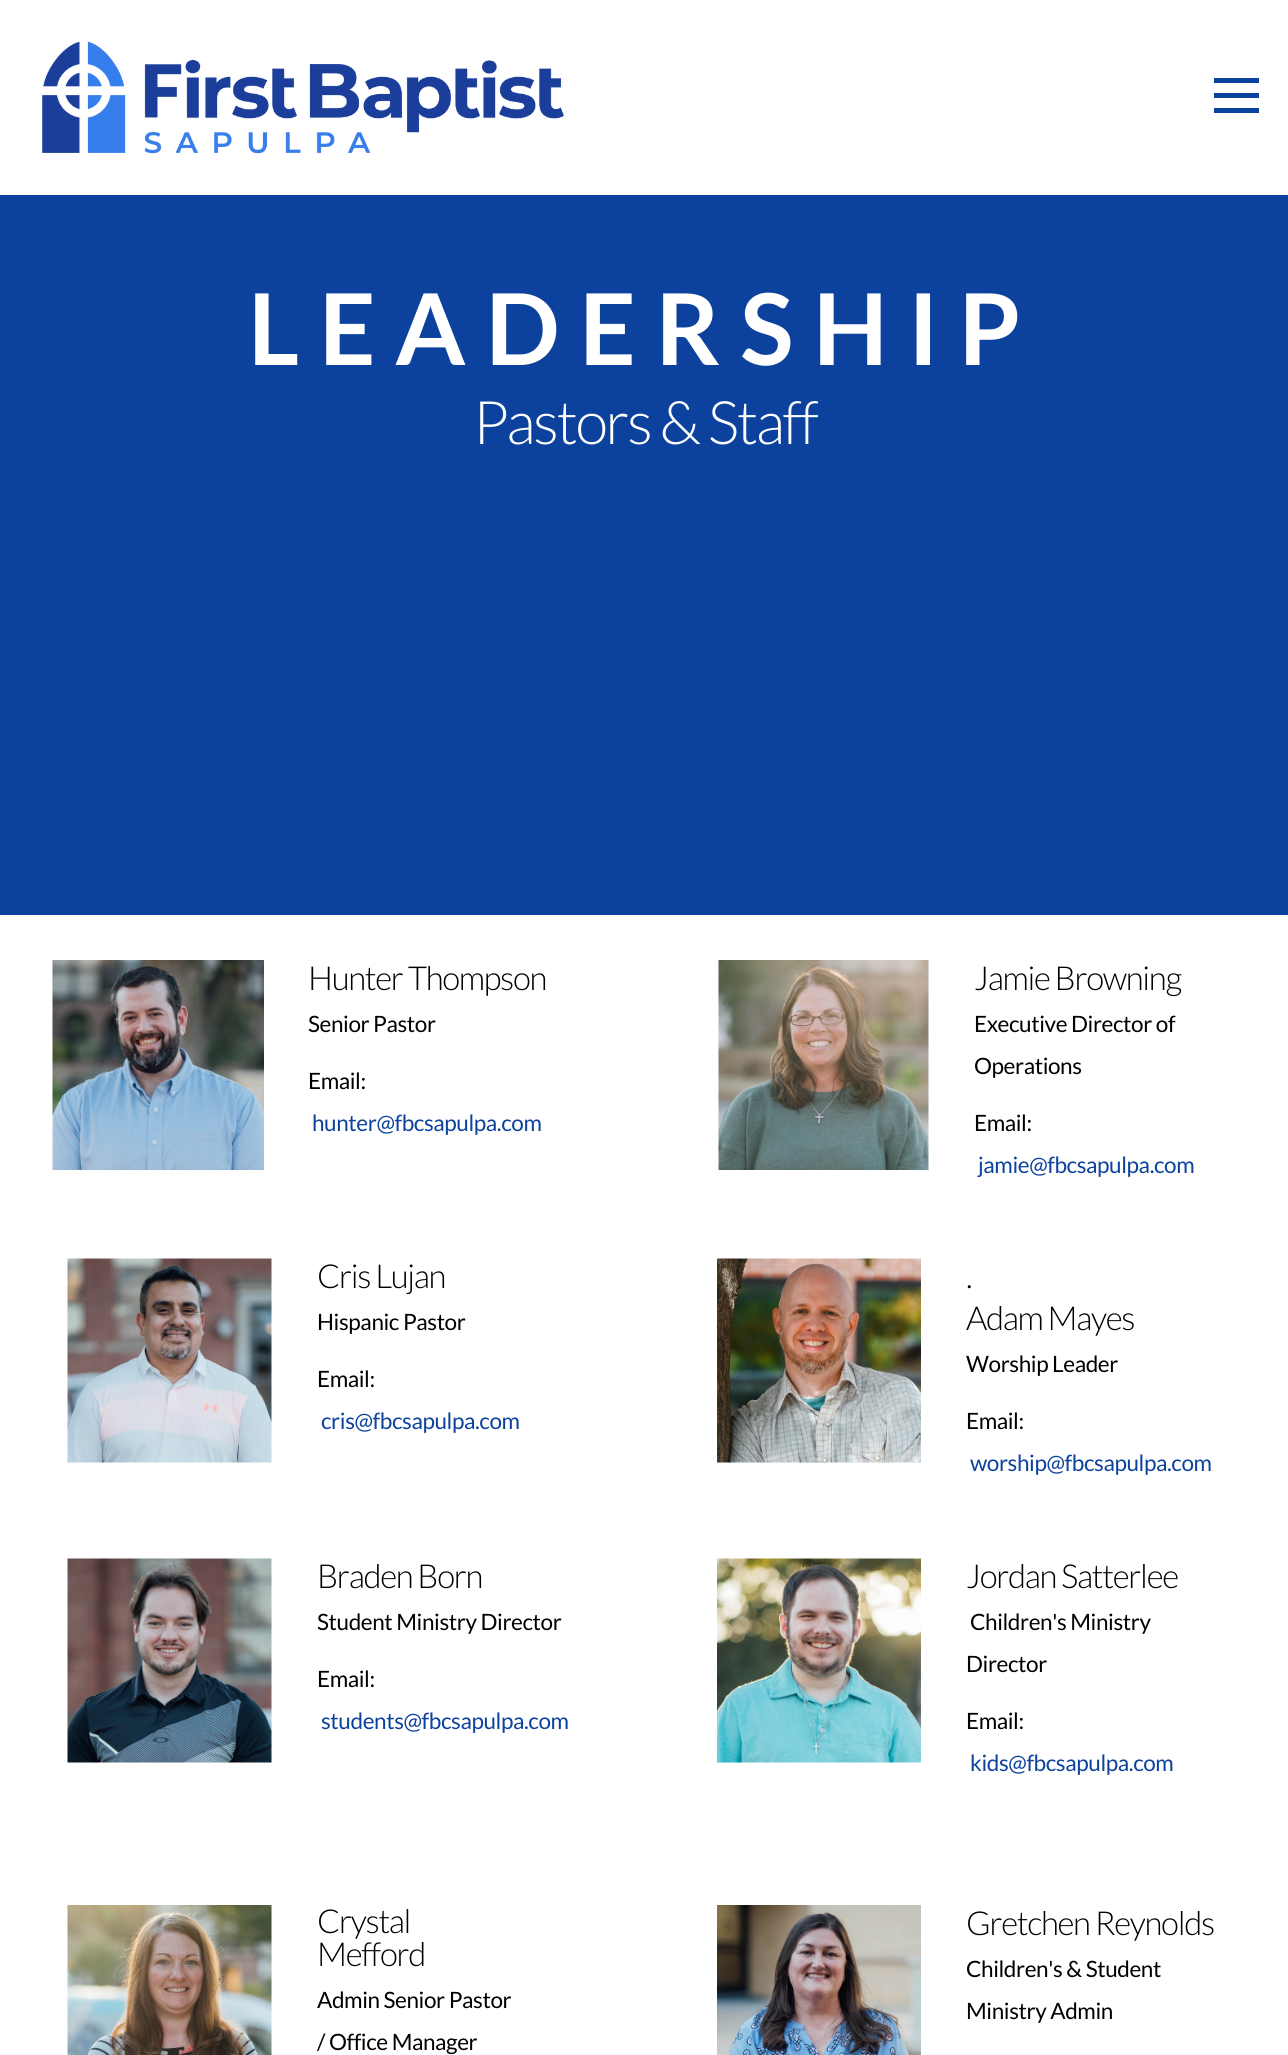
import math
import cairo


def use_color(cr, r, g, b):
  cr.set_source_rgb(r / 255, g / 255, b / 255)

def spaced_text(cr, x, y, s, letter, word):
  cr.move_to(x, y)
  for ch in s:
    cr.show_text(ch)
    cr.rel_move_to(letter + word * (ch == ' '), 0)

def box(cr, x, y, w, h, *color):
  use_color(cr, *color)
  cr.rectangle(x, y, w, h)
  cr.fill()

def picture(cr, path, x, y, w, h):
  cr.save()
  cr.set_source_surface(cairo.ImageSurface.create_from_png(path), x, y)
  cr.rectangle(x, y, w, h)
  cr.fill()
  cr.restore()

def draw(cr):
  use_color(cr, 255, 255, 255)
  cr.paint()
  picture(cr, "img_01.png", 42, 41, 522, 113)
  box(cr, 1214, 78, 45, 5, 12, 66, 158)
  box(cr, 1214, 93, 45, 5, 12, 66, 158)
  box(cr, 1214, 108, 45, 5, 12, 66, 158)
  box(cr, 0, 195, 1288, 720, 12, 66, 158)
  picture(cr, "img_02.png", 52, 960, 212, 210)
  picture(cr, "img_03.png", 718, 960, 211, 210)
  picture(cr, "img_04.png", 67, 1258, 205, 205)
  picture(cr, "img_05.png", 717, 1258, 204, 205)
  picture(cr, "img_06.png", 67, 1558, 205, 205)
  picture(cr, "img_07.png", 717, 1558, 204, 205)
  picture(cr, "img_08.png", 67, 1905, 205, 150)
  picture(cr, "img_09.png", 717, 1905, 204, 150)
  cr.select_font_face("Lato", cairo.FONT_SLANT_NORMAL, cairo.FONT_WEIGHT_BOLD)
  cr.set_font_size(99)
  use_color(cr, 255, 255, 255)
  spaced_text(cr, 248, 365, "LEADERSHIP", 19.75, 0)
  cr.select_font_face("Lato Light")
  cr.set_font_size(60)
  spaced_text(cr, 473, 444, "Pastors & Staff", -2.4, 0)
  cr.set_font_size(33)
  use_color(cr, 0, 0, 0)
  spaced_text(cr, 308, 990, "Hunter Thompson", -1.3, 0)
  cr.select_font_face("Lato")
  cr.set_font_size(22.5)
  spaced_text(cr, 308, 1032, "Senior Pastor", -0.4, 0)
  spaced_text(cr, 308, 1089, "Email:", -0.4, 0)
  use_color(cr, 12, 66, 158)
  spaced_text(cr, 312, 1131, "hunter@fbcsapulpa.com", -0.4, 0)
  cr.select_font_face("Lato Light")
  cr.set_font_size(33)
  use_color(cr, 0, 0, 0)
  spaced_text(cr, 974, 990, "Jamie Browning", -1.3, 0)
  cr.select_font_face("Lato")
  cr.set_font_size(22.5)
  spaced_text(cr, 974, 1032, "Executive Director of", -0.4, 0)
  spaced_text(cr, 974, 1074, "Operations", -0.4, 0)
  spaced_text(cr, 974, 1131, "Email:", -0.4, 0)
  use_color(cr, 12, 66, 158)
  spaced_text(cr, 978, 1173, "jamie@fbcsapulpa.com", -0.4, 0)
  cr.select_font_face("Lato Light")
  cr.set_font_size(33)
  use_color(cr, 0, 0, 0)
  spaced_text(cr, 317, 1288, "Cris Lujan", -1.3, 0)
  cr.select_font_face("Lato")
  cr.set_font_size(22.5)
  spaced_text(cr, 317, 1330, "Hispanic Pastor", -0.4, 0)
  spaced_text(cr, 317, 1387, "Email:", -0.4, 0)
  use_color(cr, 12, 66, 158)
  spaced_text(cr, 321, 1429, "cris@fbcsapulpa.com", -0.4, 0)
  cr.select_font_face("Lato Light")
  cr.set_font_size(33)
  use_color(cr, 0, 0, 0)
  spaced_text(cr, 966, 1288, ".", -1.3, 0)
  spaced_text(cr, 966, 1330, "Adam Mayes", -1.3, 0)
  cr.select_font_face("Lato")
  cr.set_font_size(22.5)
  spaced_text(cr, 966, 1372, "Worship Leader", -0.4, 0)
  spaced_text(cr, 966, 1429, "Email:", -0.4, 0)
  use_color(cr, 12, 66, 158)
  spaced_text(cr, 970, 1471, "worship@fbcsapulpa.com", -0.4, 0)
  cr.select_font_face("Lato Light")
  cr.set_font_size(33)
  use_color(cr, 0, 0, 0)
  spaced_text(cr, 317, 1588, "Braden Born", -1.3, 0)
  cr.select_font_face("Lato")
  cr.set_font_size(22.5)
  spaced_text(cr, 317, 1630, "Student Ministry Director", -0.4, 0)
  spaced_text(cr, 317, 1687, "Email:", -0.4, 0)
  use_color(cr, 12, 66, 158)
  spaced_text(cr, 321, 1729, "students@fbcsapulpa.com", -0.4, 0)
  cr.select_font_face("Lato Light")
  cr.set_font_size(33)
  use_color(cr, 0, 0, 0)
  spaced_text(cr, 966, 1588, "Jordan Satterlee", -1.3, 0)
  cr.select_font_face("Lato")
  cr.set_font_size(22.5)
  spaced_text(cr, 970, 1630, "Children's Ministry", -0.4, 0)
  spaced_text(cr, 966, 1672, "Director", -0.4, 0)
  spaced_text(cr, 966, 1729, "Email:", -0.4, 0)
  use_color(cr, 12, 66, 158)
  spaced_text(cr, 970, 1771, "kids@fbcsapulpa.com", -0.4, 0)
  cr.select_font_face("Lato Light")
  cr.set_font_size(33)
  use_color(cr, 0, 0, 0)
  spaced_text(cr, 317, 1933, "Crystal", -1.3, 0)
  spaced_text(cr, 317, 1966, "Mefford", -1.3, 0)
  cr.select_font_face("Lato")
  cr.set_font_size(22.5)
  spaced_text(cr, 317, 2008, "Admin Senior Pastor", -0.4, 0)
  spaced_text(cr, 317, 2050, "/ Office Manager", -0.4, 0)
  cr.select_font_face("Lato Light")
  cr.set_font_size(33)
  spaced_text(cr, 966, 1935, "Gretchen Reynolds", -1.3, 0)
  cr.select_font_face("Lato")
  cr.set_font_size(22.5)
  spaced_text(cr, 966, 1977, "Children's & Student", -0.4, 0)
  spaced_text(cr, 966, 2019, "Ministry Admin", -0.4, 0)


surface = cairo.ImageSurface(cairo.FORMAT_RGB24, 1288, 2055)
cr = cairo.Context(surface)
options = cairo.FontOptions()
options.set_hint_metrics(cairo.HINT_METRICS_OFF)
options.set_hint_style(cairo.HINT_STYLE_NONE)
cr.set_font_options(options)
cr.set_miter_limit(4)
draw(cr)
surface.write_to_png("out.png")
